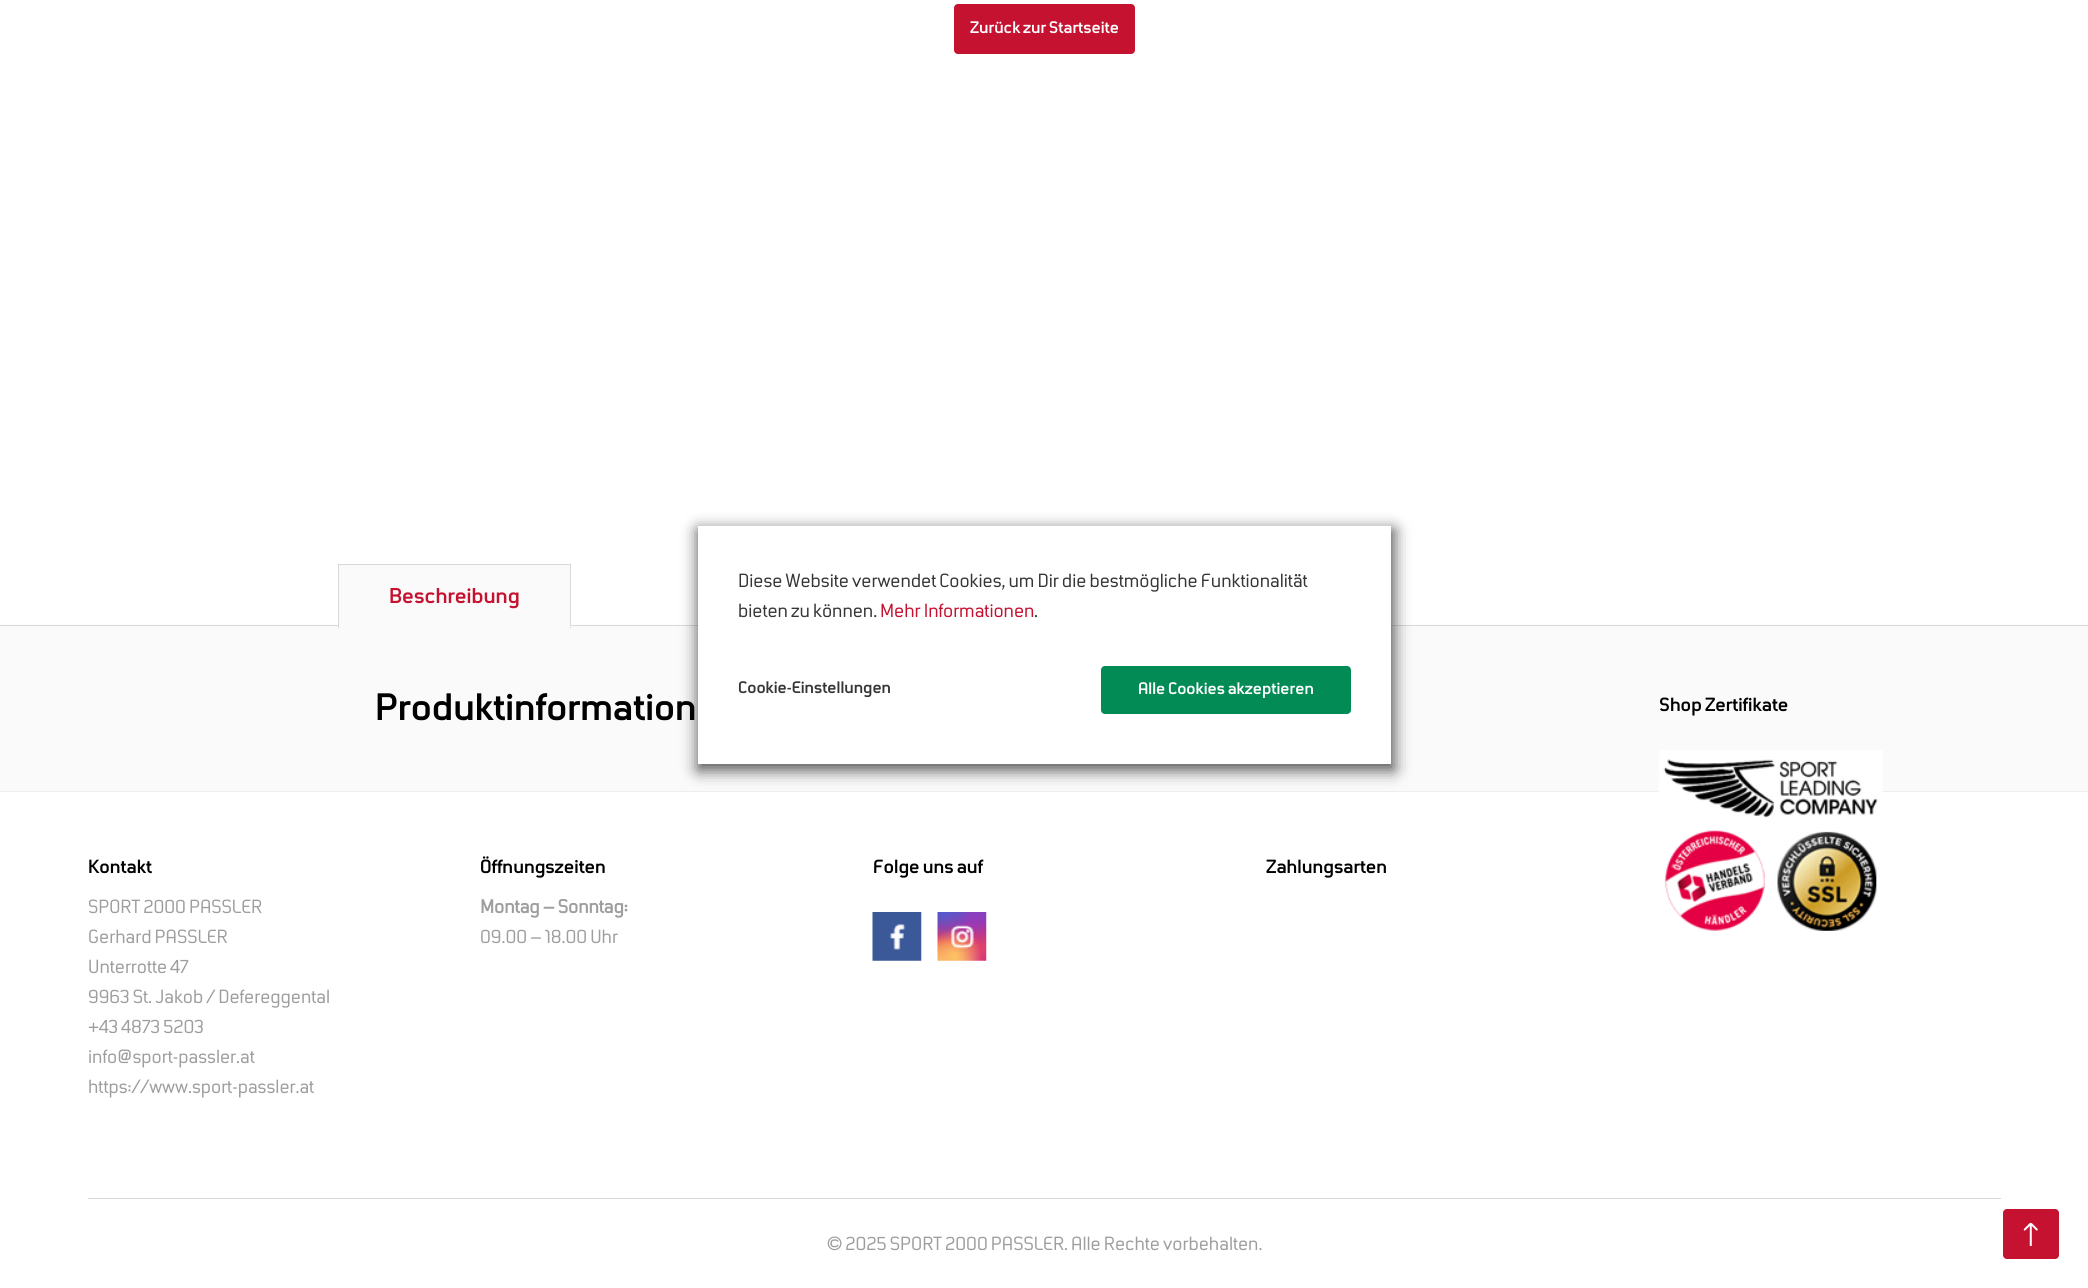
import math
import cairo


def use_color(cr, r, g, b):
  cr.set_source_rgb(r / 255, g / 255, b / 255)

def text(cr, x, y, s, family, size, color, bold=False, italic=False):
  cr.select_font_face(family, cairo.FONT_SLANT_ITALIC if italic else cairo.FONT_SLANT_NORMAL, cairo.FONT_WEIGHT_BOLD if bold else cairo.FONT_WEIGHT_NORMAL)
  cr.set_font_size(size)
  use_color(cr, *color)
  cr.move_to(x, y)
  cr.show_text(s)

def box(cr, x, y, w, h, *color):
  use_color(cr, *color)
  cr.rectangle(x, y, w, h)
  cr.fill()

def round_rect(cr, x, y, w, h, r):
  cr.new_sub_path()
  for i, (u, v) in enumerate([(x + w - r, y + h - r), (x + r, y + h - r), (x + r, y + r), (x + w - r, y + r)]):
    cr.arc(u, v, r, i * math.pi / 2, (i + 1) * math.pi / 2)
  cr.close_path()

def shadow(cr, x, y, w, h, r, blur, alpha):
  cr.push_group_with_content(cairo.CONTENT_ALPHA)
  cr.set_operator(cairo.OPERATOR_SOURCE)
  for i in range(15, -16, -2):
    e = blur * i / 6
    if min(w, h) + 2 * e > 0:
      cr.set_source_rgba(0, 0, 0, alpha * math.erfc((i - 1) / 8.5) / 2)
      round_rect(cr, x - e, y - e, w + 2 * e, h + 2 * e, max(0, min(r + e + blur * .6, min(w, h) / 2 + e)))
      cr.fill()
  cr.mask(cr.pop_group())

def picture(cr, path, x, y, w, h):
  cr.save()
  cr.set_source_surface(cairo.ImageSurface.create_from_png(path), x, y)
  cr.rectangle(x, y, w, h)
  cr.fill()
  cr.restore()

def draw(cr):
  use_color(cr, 255, 255, 255)
  cr.paint()
  use_color(cr, 196, 18, 48)
  round_rect(cr, 954.5, 4.5, 180, 49, 3.5)
  cr.fill_preserve()
  cr.set_line_width(1)
  cr.stroke()
  box(cr, 0, 625, 2088, 1, 216, 216, 216)
  box(cr, 339, 565, 231, 61, 250, 250, 250)
  box(cr, 338, 564, 233, 1, 216, 216, 216)
  box(cr, 0, 626, 2088, 165, 250, 250, 250)
  box(cr, 570, 564, 1, 64, 216, 216, 216)
  box(cr, 570, 626, 1, 1, 250, 250, 250)
  box(cr, 338, 564, 1, 64, 216, 216, 216)
  box(cr, 0, 791, 2088, 1, 238, 238, 238)
  use_color(cr, 79, 79, 79)
  shadow(cr, 698, 530, 696, 240, 0, 8, 1)
  box(cr, 698, 526, 693, 238, 255, 255, 255)
  use_color(cr, 2, 139, 84)
  round_rect(cr, 1101, 666, 250, 48, 4)
  cr.fill()
  picture(cr, "img_01.png", 1658, 750, 225, 181)
  picture(cr, "img_02.png", 872, 912, 50, 49)
  picture(cr, "img_03.png", 937, 912, 50, 49)
  box(cr, 88, 1198, 1913, 1, 216, 216, 216)
  use_color(cr, 196, 18, 48)
  round_rect(cr, 2003.5, 1209.5, 55, 49, 3.5)
  cr.fill_preserve()
  cr.stroke()
  picture(cr, "img_04.png", 2023, 1223, 15, 23)
  text(cr, 970, 33, "Zurück zur Startseite", "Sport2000", 17.5, (255, 255, 255), bold=True)
  text(cr, 389, 603, "Beschreibung", "Sport2000", 22.5, (196, 18, 48), bold=True)
  text(cr, 375, 720, "Produktinformation", "Sport2000", 40, (0, 0, 0), bold=True)
  text(cr, 738, 587, "Diese Website verwendet Cookies, um Dir die bestmögliche Funktionalität", "Sport2000", 20, (54, 54, 54))
  text(cr, 738, 617, "bieten zu können.", "Sport2000", 20, (54, 54, 54))
  text(cr, 880, 617, "Mehr Informationen", "Sport2000", 20, (196, 18, 48))
  text(cr, 1034, 617, ".", "Sport2000", 20, (54, 54, 54))
  text(cr, 738, 693, "Cookie-Einstellungen", "Sport2000", 17.5, (54, 54, 54), bold=True)
  text(cr, 1138, 694, "Alle Cookies akzeptieren", "Sport2000", 17.5, (255, 255, 255), bold=True)
  text(cr, 1659, 711, "Shop Zertifikate", "Sport2000", 20, (0, 0, 0), bold=True)
  text(cr, 88, 873, "Kontakt", "Sport2000", 20, (0, 0, 0), bold=True)
  text(cr, 88, 913, "SPORT 2000 PASSLER", "Sport2000", 20, (158, 158, 158))
  text(cr, 88, 943, "Gerhard PASSLER", "Sport2000", 20, (158, 158, 158))
  text(cr, 88, 973, "Unterrotte 47", "Sport2000", 20, (158, 158, 158))
  text(cr, 88, 1003, "9963 St. Jakob / Defereggental", "Sport2000", 20, (158, 158, 158))
  text(cr, 88, 1033, "+43 4873 5203", "Sport2000", 20, (158, 158, 158))
  text(cr, 88, 1063, "info@sport-passler.at", "Sport2000", 20, (158, 158, 158))
  text(cr, 88, 1093, "https://www.sport-passler.at", "Sport2000", 20, (158, 158, 158))
  text(cr, 480, 873, "Öffnungszeiten", "Sport2000", 20, (0, 0, 0), bold=True)
  text(cr, 480, 913, "Montag – Sonntag:", "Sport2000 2", 20, (158, 158, 158), bold=True)
  text(cr, 480, 943, "09.00 – 18.00 Uhr", "Sport2000", 20, (158, 158, 158))
  text(cr, 873, 873, "Folge uns auf", "Sport2000", 20, (0, 0, 0), bold=True)
  text(cr, 1266, 873, "Zahlungsarten", "Sport2000", 20, (0, 0, 0), bold=True)
  text(cr, 827, 1250, "© 2025 SPORT 2000 PASSLER. Alle Rechte vorbehalten.", "Sport2000", 20, (158, 158, 158))


surface = cairo.ImageSurface(cairo.FORMAT_RGB24, 2088, 1288)
cr = cairo.Context(surface)
options = cairo.FontOptions()
options.set_hint_metrics(cairo.HINT_METRICS_OFF)
options.set_hint_style(cairo.HINT_STYLE_NONE)
cr.set_font_options(options)
cr.set_miter_limit(4)
draw(cr)
surface.write_to_png("out.png")
